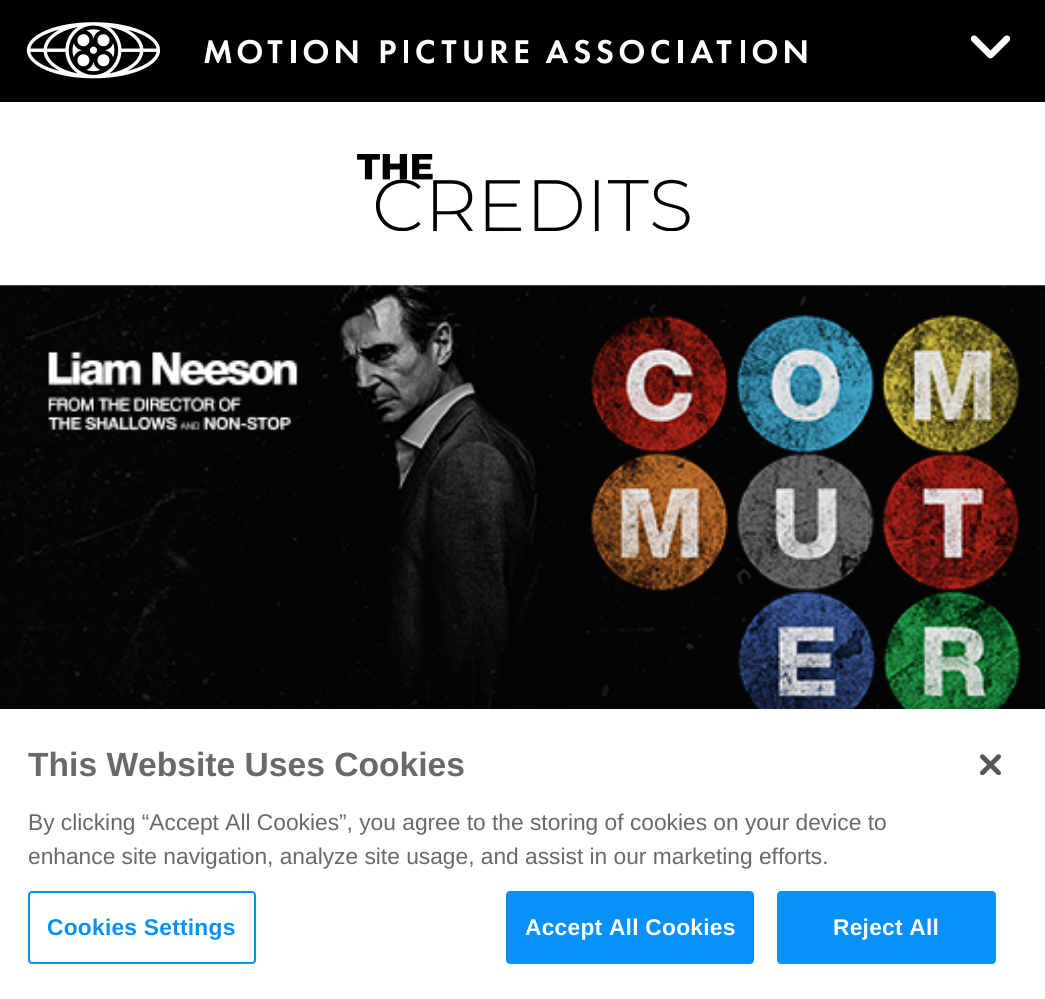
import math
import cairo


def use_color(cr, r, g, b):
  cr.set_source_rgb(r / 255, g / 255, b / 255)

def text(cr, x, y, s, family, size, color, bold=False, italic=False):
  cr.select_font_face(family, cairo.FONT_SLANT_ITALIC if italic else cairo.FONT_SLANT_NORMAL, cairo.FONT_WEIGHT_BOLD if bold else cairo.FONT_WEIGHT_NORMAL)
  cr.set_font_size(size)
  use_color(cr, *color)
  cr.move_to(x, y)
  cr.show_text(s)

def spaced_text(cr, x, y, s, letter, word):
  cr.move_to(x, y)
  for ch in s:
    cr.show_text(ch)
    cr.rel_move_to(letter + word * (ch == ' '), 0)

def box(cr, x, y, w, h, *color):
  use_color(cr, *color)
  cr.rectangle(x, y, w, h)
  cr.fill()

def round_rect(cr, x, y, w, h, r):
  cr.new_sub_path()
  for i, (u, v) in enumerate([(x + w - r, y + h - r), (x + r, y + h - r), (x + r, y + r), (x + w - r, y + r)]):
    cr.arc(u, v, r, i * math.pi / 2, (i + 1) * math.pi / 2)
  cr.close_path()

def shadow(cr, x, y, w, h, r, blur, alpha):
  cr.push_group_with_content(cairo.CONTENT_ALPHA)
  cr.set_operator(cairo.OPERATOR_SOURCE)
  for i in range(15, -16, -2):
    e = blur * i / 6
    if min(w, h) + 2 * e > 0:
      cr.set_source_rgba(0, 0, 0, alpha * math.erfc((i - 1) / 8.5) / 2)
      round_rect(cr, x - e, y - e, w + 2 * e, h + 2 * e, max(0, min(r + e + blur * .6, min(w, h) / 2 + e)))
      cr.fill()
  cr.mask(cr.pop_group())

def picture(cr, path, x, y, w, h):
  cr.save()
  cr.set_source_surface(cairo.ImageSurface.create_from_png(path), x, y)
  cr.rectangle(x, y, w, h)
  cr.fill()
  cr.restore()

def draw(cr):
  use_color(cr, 255, 255, 255)
  cr.paint()
  box(cr, 0, 0, 1045, 102, 0, 0, 0)
  picture(cr, "img_01.png", 26, 22, 781, 57)
  picture(cr, "img_02.png", 970, 35, 41, 24)
  picture(cr, "img_03.png", 357, 154, 333, 77)
  picture(cr, "img_04.png", 0, 285, 1045, 424)
  use_color(cr, 0, 0, 0)
  shadow(cr, 0, 709, 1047, 290, 0, 16, 0.2)
  box(cr, 0, 709, 1045, 290, 255, 255, 255)
  round_rect(cr, 29, 892, 226, 71, 3)
  use_color(cr, 5, 145, 245)
  cr.stroke()
  round_rect(cr, 507, 892, 246, 71, 3)
  cr.fill_preserve()
  cr.stroke()
  round_rect(cr, 778, 892, 217, 71, 3)
  cr.fill_preserve()
  cr.stroke()
  picture(cr, "img_05.png", 980, 754, 21, 21)
  text(cr, 28, 776, "This Website Uses Cookies", "Liberation Sans", 33.6, (105, 105, 105), bold=True)
  text(cr, 28, 830, "By clicking “Accept All Cookies”, you agree to the storing of cookies on your device to", "Liberation Sans", 22.75, (105, 105, 105))
  text(cr, 28, 864, "enhance site navigation, analyze site usage, and assist in our marketing efforts.", "Liberation Sans", 22.75, (105, 105, 105))
  cr.select_font_face("Liberation Sans", cairo.FONT_SLANT_NORMAL, cairo.FONT_WEIGHT_BOLD)
  use_color(cr, 5, 145, 245)
  spaced_text(cr, 47, 935, "Cookies Settings", 0.25, 0)
  use_color(cr, 255, 255, 255)
  spaced_text(cr, 525, 935, "Accept All Cookies", 0.25, 0)
  spaced_text(cr, 833, 935, "Reject All", 0.25, 0)


surface = cairo.ImageSurface(cairo.FORMAT_RGB24, 1045, 999)
cr = cairo.Context(surface)
options = cairo.FontOptions()
options.set_hint_metrics(cairo.HINT_METRICS_OFF)
options.set_hint_style(cairo.HINT_STYLE_NONE)
cr.set_font_options(options)
cr.set_miter_limit(4)
draw(cr)
surface.write_to_png("out.png")
